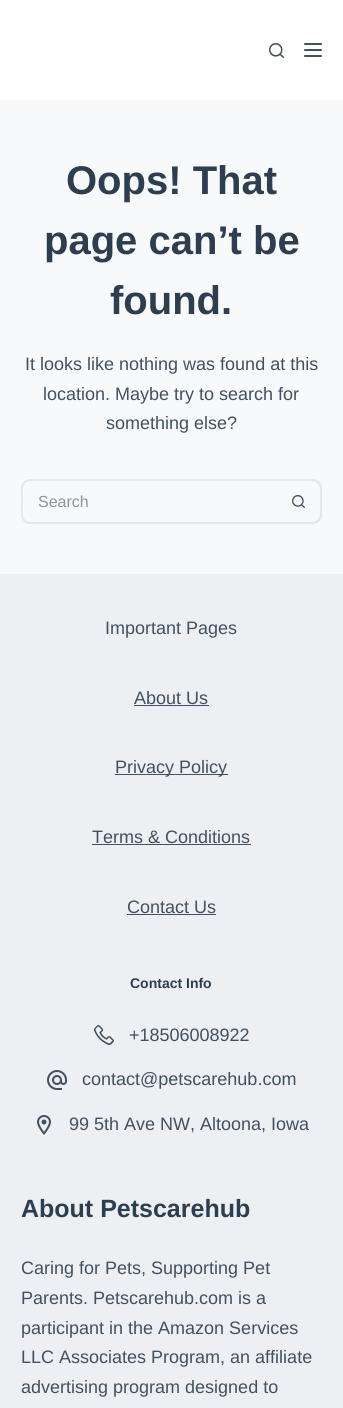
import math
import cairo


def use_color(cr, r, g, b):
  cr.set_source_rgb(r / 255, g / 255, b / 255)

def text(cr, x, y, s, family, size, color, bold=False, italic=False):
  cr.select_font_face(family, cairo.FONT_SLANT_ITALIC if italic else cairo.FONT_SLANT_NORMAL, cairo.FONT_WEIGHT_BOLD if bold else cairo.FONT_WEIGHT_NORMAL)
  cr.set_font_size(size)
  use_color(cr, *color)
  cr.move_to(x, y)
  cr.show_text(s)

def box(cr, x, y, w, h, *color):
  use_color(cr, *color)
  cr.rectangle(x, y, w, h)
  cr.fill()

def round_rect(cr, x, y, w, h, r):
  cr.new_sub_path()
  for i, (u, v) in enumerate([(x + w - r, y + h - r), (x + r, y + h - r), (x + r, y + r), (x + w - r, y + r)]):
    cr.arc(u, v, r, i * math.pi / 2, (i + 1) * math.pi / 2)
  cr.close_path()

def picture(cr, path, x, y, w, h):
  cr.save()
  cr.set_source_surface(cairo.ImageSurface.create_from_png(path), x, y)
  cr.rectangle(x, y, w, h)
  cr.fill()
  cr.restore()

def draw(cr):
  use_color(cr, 248, 249, 251)
  cr.paint()
  box(cr, 0, 0, 343, 100, 255, 255, 255)
  picture(cr, "img_01.png", 269, 43, 15, 15)
  use_color(cr, 65, 81, 97)
  round_rect(cr, 304, 43, 18, 2, 1)
  cr.fill()
  round_rect(cr, 304, 49, 18, 2, 1)
  cr.fill()
  round_rect(cr, 304, 55, 18, 2, 1)
  cr.fill()
  use_color(cr, 226, 231, 237)
  cr.set_fill_rule(cairo.FILL_RULE_EVEN_ODD)
  cr.new_path()
  cr.move_to(31, 479)
  cr.line_to(277, 479)
  cr.line_to(277, 524)
  cr.line_to(31, 524)
  cr.curve_to(25, 524, 21, 520, 21, 514)
  cr.line_to(21, 489)
  cr.curve_to(21, 483, 25, 479, 31, 479)
  cr.close_path()
  cr.move_to(31, 481)
  cr.line_to(277, 481)
  cr.line_to(277, 522)
  cr.line_to(29, 522)
  cr.curve_to(20, 520, 23, 508, 23, 502)
  cr.curve_to(23, 495, 20, 481, 31, 481)
  cr.close_path()
  cr.fill()
  cr.new_path()
  cr.move_to(277, 479)
  cr.line_to(312, 479)
  cr.curve_to(318, 479, 322, 483, 322, 489)
  cr.line_to(322, 514)
  cr.curve_to(322, 520, 318, 524, 312, 524)
  cr.line_to(277, 524)
  cr.close_path()
  cr.move_to(277, 481)
  cr.line_to(312, 481)
  cr.curve_to(316, 481, 320, 485, 320, 489)
  cr.line_to(320, 514)
  cr.curve_to(320, 518, 316, 522, 312, 522)
  cr.line_to(277, 522)
  cr.close_path()
  cr.fill()
  picture(cr, "img_02.png", 292, 495, 13, 13)
  cr.new_path()
  cr.move_to(302.5, 508.5)
  cr.curve_to(299, 510.5, 294.5, 509.5, 292.5, 505.5)
  use_color(cr, 248, 249, 251)
  cr.set_line_width(1.5)
  cr.set_line_cap(cairo.LINE_CAP_ROUND)
  cr.stroke()
  box(cr, 0, 574, 343, 834, 237, 239, 242)
  box(cr, 134, 705, 75, 1, 65, 81, 97)
  box(cr, 115, 774, 113, 1, 65, 81, 97)
  box(cr, 92, 844, 159, 1, 65, 81, 97)
  box(cr, 127, 914, 89, 1, 65, 81, 97)
  picture(cr, "img_03.png", 94, 1025, 20, 20)
  picture(cr, "img_04.png", 47, 1070, 20, 20)
  picture(cr, "img_05.png", 37, 1115, 14, 20)
  text(cr, 66, 194, "Oops! That", "Liberation Sans", 40, (44, 62, 80), bold=True)
  text(cr, 44, 254, "page can’t be", "Liberation Sans", 40, (44, 62, 80), bold=True)
  text(cr, 110, 314, "found.", "Liberation Sans", 40, (44, 62, 80), bold=True)
  text(cr, 25, 370, "It looks like nothing was found at this", "Liberation Sans", 18, (65, 81, 97))
  text(cr, 43, 400, "location. Maybe try to search for", "Liberation Sans", 18, (65, 81, 97))
  text(cr, 106, 429, "something else?", "Liberation Sans", 18, (65, 81, 97))
  text(cr, 38, 507, "Search", "Liberation Sans", 16, (138, 148, 159))
  text(cr, 105, 634, "Important Pages", "Liberation Sans", 18, (65, 81, 97))
  text(cr, 134, 704, "About Us", "Liberation Sans", 18, (65, 81, 97))
  text(cr, 115, 773, "Privacy Policy", "Liberation Sans", 18, (65, 81, 97))
  text(cr, 92, 843, "Terms & Conditions", "Liberation Sans", 18, (65, 81, 97))
  text(cr, 127, 913, "Contact Us", "Liberation Sans", 18, (65, 81, 97))
  text(cr, 130, 988, "Contact Info", "Liberation Sans", 14, (44, 62, 80), bold=True)
  text(cr, 129, 1041, "+18506008922", "Liberation Sans", 18, (65, 81, 97))
  text(cr, 82, 1085, "contact@petscarehub.com", "Liberation Sans", 18, (65, 81, 97))
  text(cr, 69, 1130, "99 5th Ave NW, Altoona, Iowa", "Liberation Sans", 18, (65, 81, 97))
  text(cr, 21, 1217, "About Petscarehub", "Liberation Sans", 25, (44, 62, 80), bold=True)
  text(cr, 21, 1274, "Caring for Pets, Supporting Pet", "Liberation Sans", 18, (65, 81, 97))
  text(cr, 21, 1304, "Parents. Petscarehub.com is a", "Liberation Sans", 18, (65, 81, 97))
  text(cr, 21, 1334, "participant in the Amazon Services", "Liberation Sans", 18, (65, 81, 97))
  text(cr, 21, 1363, "LLC Associates Program, an affiliate", "Liberation Sans", 18, (65, 81, 97))
  text(cr, 21, 1393, "advertising program designed to", "Liberation Sans", 18, (65, 81, 97))


surface = cairo.ImageSurface(cairo.FORMAT_RGB24, 343, 1408)
cr = cairo.Context(surface)
options = cairo.FontOptions()
options.set_hint_metrics(cairo.HINT_METRICS_OFF)
options.set_hint_style(cairo.HINT_STYLE_NONE)
cr.set_font_options(options)
cr.set_miter_limit(4)
draw(cr)
surface.write_to_png("out.png")
